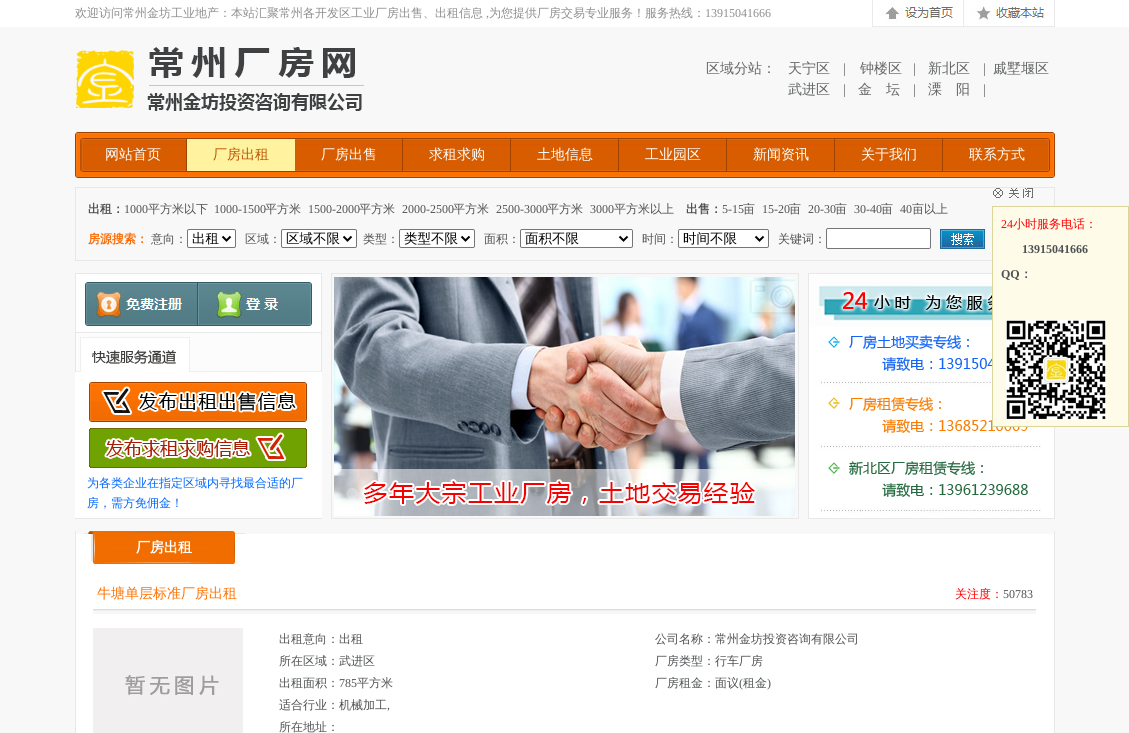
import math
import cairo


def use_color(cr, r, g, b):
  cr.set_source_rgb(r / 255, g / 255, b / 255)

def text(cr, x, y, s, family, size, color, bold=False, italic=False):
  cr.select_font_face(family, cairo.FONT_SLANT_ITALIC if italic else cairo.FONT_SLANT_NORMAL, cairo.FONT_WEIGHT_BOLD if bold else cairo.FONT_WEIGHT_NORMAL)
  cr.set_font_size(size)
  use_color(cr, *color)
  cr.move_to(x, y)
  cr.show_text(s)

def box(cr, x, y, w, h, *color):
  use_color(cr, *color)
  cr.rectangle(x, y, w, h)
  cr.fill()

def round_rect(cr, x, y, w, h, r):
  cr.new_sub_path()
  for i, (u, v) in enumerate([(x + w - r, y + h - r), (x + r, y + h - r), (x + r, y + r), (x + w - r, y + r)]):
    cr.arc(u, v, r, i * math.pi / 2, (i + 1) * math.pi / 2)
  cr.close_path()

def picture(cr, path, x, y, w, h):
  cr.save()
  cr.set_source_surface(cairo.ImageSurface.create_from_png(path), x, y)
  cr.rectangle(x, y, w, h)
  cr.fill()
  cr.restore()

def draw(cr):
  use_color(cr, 248, 248, 248)
  cr.paint()
  box(cr, 0, 0, 1129, 27, 255, 255, 255)
  picture(cr, "img_01.png", 872, 0, 183, 27)
  picture(cr, "img_02.png", 75, 45, 289, 66)
  picture(cr, "img_03.png", 79, 132, 972, 46)
  picture(cr, "img_04.png", 75, 132, 4, 46)
  picture(cr, "img_05.png", 79, 138, 5, 40)
  picture(cr, "img_06.png", 186, 138, 1, 34)
  picture(cr, "img_07.png", 187, 138, 108, 33)
  picture(cr, "img_06.png", 402, 138, 1, 34)
  picture(cr, "img_06.png", 510, 138, 1, 34)
  picture(cr, "img_06.png", 618, 138, 1, 34)
  picture(cr, "img_06.png", 726, 138, 1, 34)
  picture(cr, "img_06.png", 834, 138, 1, 34)
  picture(cr, "img_06.png", 942, 138, 1, 34)
  picture(cr, "img_08.png", 1047, 138, 4, 40)
  picture(cr, "img_09.png", 1051, 132, 4, 46)
  cr.rectangle(75.5, 187.5, 979, 73)
  use_color(cr, 232, 232, 232)
  cr.set_line_width(1)
  cr.stroke()
  use_color(cr, 255, 255, 255)
  round_rect(cr, 187.5, 229.5, 48, 18, 1.5)
  cr.fill_preserve()
  use_color(cr, 118, 118, 118)
  cr.stroke()
  cr.new_path()
  cr.move_to(222.5, 236.5)
  cr.line_to(226.5, 240.5)
  cr.line_to(230.5, 236.5)
  use_color(cr, 0, 0, 0)
  cr.set_line_width(2)
  cr.stroke()
  use_color(cr, 255, 255, 255)
  round_rect(cr, 281.5, 229.5, 75, 18, 1.5)
  cr.fill_preserve()
  use_color(cr, 118, 118, 118)
  cr.set_line_width(1)
  cr.stroke()
  cr.new_path()
  cr.move_to(343.5, 236.5)
  cr.line_to(347.5, 240.5)
  cr.line_to(351.5, 236.5)
  use_color(cr, 0, 0, 0)
  cr.set_line_width(2)
  cr.stroke()
  use_color(cr, 255, 255, 255)
  round_rect(cr, 399.5, 229.5, 75, 18, 1.5)
  cr.fill_preserve()
  use_color(cr, 118, 118, 118)
  cr.set_line_width(1)
  cr.stroke()
  cr.new_path()
  cr.move_to(461.5, 236.5)
  cr.line_to(465.5, 240.5)
  cr.line_to(469.5, 236.5)
  use_color(cr, 0, 0, 0)
  cr.set_line_width(2)
  cr.stroke()
  use_color(cr, 255, 255, 255)
  round_rect(cr, 520.5, 229.5, 112, 18, 1.5)
  cr.fill_preserve()
  use_color(cr, 118, 118, 118)
  cr.set_line_width(1)
  cr.stroke()
  cr.new_path()
  cr.move_to(619.5, 236.5)
  cr.line_to(623.5, 240.5)
  cr.line_to(627.5, 236.5)
  use_color(cr, 0, 0, 0)
  cr.set_line_width(2)
  cr.stroke()
  use_color(cr, 255, 255, 255)
  round_rect(cr, 678.5, 229.5, 90, 18, 1.5)
  cr.fill_preserve()
  use_color(cr, 118, 118, 118)
  cr.set_line_width(1)
  cr.stroke()
  cr.new_path()
  cr.move_to(755.5, 236.5)
  cr.line_to(759.5, 240.5)
  cr.line_to(763.5, 236.5)
  use_color(cr, 0, 0, 0)
  cr.set_line_width(2)
  cr.stroke()
  use_color(cr, 255, 255, 255)
  round_rect(cr, 826.5, 228.5, 104, 20, 1.5)
  cr.fill_preserve()
  use_color(cr, 118, 118, 118)
  cr.set_line_width(1)
  cr.stroke()
  picture(cr, "img_10.png", 940, 229, 45, 20)
  picture(cr, "img_11.png", 993, 188, 40, 10)
  cr.rectangle(808.5, 273.5, 246, 245)
  use_color(cr, 232, 232, 232)
  cr.stroke()
  picture(cr, "img_18.png", 809, 274, 245, 244)
  use_color(cr, 254, 252, 233)
  cr.rectangle(992.5, 206.5, 136, 220)
  cr.fill_preserve()
  use_color(cr, 220, 213, 154)
  cr.stroke()
  picture(cr, "img_12.png", 1006, 320, 100, 100)
  box(cr, 75, 372, 247, 146, 255, 255, 255)
  box(cr, 75, 518, 247, 1, 232, 232, 232)
  picture(cr, "img_13.png", 75, 273, 247, 60)
  picture(cr, "img_14.png", 75, 333, 247, 39)
  picture(cr, "img_15.png", 89, 382, 218, 40)
  picture(cr, "img_16.png", 89, 428, 218, 40)
  cr.rectangle(331.5, 273.5, 467, 245)
  cr.stroke()
  picture(cr, "img_17.png", 334, 277, 461, 239)
  box(cr, 76, 534, 978, 199, 255, 255, 255)
  box(cr, 1054, 531, 1, 202, 232, 232, 232)
  box(cr, 75, 531, 1, 202, 232, 232, 232)
  picture(cr, "img_19.png", 84, 531, 161, 33)
  picture(cr, "img_20.png", 93, 609, 943, 5)
  picture(cr, "img_21.png", 93, 628, 150, 105)
  text(cr, 75, 17, "欢迎访问常州金坊工业地产：本站汇聚常州各开发区工业厂房出售、出租信息", "WenQuanYi Zen Hei Medium", 12, (140, 142, 143))
  text(cr, 486, 17, ",", "Liberation Serif", 12, (140, 142, 143))
  text(cr, 489, 17, "为您提供厂房交易专业服务！服务热线：", "WenQuanYi Zen Hei Medium", 12, (140, 142, 143))
  text(cr, 705, 17, "13915041666", "Liberation Serif", 12, (140, 142, 143))
  text(cr, 706, 73, "区域分站：", "WenQuanYi Zen Hei Medium", 14, (99, 101, 102))
  text(cr, 788, 73, "天宁区", "WenQuanYi Zen Hei Medium", 14, (99, 101, 102))
  text(cr, 843, 73, "|", "Liberation Serif", 14, (99, 101, 102))
  text(cr, 860, 73, "钟楼区", "WenQuanYi Zen Hei Medium", 14, (99, 101, 102))
  text(cr, 913, 73, "|", "Liberation Serif", 14, (99, 101, 102))
  text(cr, 928, 73, "新北区", "WenQuanYi Zen Hei Medium", 14, (99, 101, 102))
  text(cr, 983, 73, "|", "Liberation Serif", 14, (99, 101, 102))
  text(cr, 993, 73, "戚墅堰区", "WenQuanYi Zen Hei Medium", 14, (99, 101, 102))
  text(cr, 788, 94, "武进区", "WenQuanYi Zen Hei Medium", 14, (99, 101, 102))
  text(cr, 843, 94, "|", "Liberation Serif", 14, (99, 101, 102))
  text(cr, 858, 94, "金", "WenQuanYi Zen Hei Medium", 14, (99, 101, 102))
  text(cr, 886, 94, "坛", "WenQuanYi Zen Hei Medium", 14, (99, 101, 102))
  text(cr, 913, 94, "|", "Liberation Serif", 14, (99, 101, 102))
  text(cr, 928, 94, "溧", "WenQuanYi Zen Hei Medium", 14, (99, 101, 102))
  text(cr, 956, 94, "阳", "WenQuanYi Zen Hei Medium", 14, (99, 101, 102))
  text(cr, 983, 94, "|", "Liberation Serif", 14, (99, 101, 102))
  text(cr, 105, 159, "网站首页", "WenQuanYi Zen Hei Medium", 14, (255, 255, 255))
  text(cr, 213, 159, "厂房出租", "WenQuanYi Zen Hei Medium", 14, (190, 84, 4))
  text(cr, 321, 159, "厂房出售", "WenQuanYi Zen Hei Medium", 14, (255, 255, 255))
  text(cr, 429, 159, "求租求购", "WenQuanYi Zen Hei Medium", 14, (255, 255, 255))
  text(cr, 537, 159, "土地信息", "WenQuanYi Zen Hei Medium", 14, (255, 255, 255))
  text(cr, 645, 159, "工业园区", "WenQuanYi Zen Hei Medium", 14, (255, 255, 255))
  text(cr, 753, 159, "新闻资讯", "WenQuanYi Zen Hei Medium", 14, (255, 255, 255))
  text(cr, 861, 159, "关于我们", "WenQuanYi Zen Hei Medium", 14, (255, 255, 255))
  text(cr, 969, 159, "联系方式", "WenQuanYi Zen Hei Medium", 14, (255, 255, 255))
  text(cr, 88, 213, "出租：", "WenQuanYi Zen Hei", 12, (78, 81, 83), bold=True)
  text(cr, 124, 213, "1000", "Liberation Serif", 12, (78, 81, 83))
  text(cr, 148, 213, "平方米以下", "WenQuanYi Zen Hei Medium", 12, (78, 81, 83))
  text(cr, 214, 213, "1000-1500", "Liberation Serif", 12, (78, 81, 83))
  text(cr, 265, 213, "平方米", "WenQuanYi Zen Hei Medium", 12, (78, 81, 83))
  text(cr, 308, 213, "1500-2000", "Liberation Serif", 12, (78, 81, 83))
  text(cr, 359, 213, "平方米", "WenQuanYi Zen Hei Medium", 12, (78, 81, 83))
  text(cr, 402, 213, "2000-2500", "Liberation Serif", 12, (78, 81, 83))
  text(cr, 453, 213, "平方米", "WenQuanYi Zen Hei Medium", 12, (78, 81, 83))
  text(cr, 496, 213, "2500-3000", "Liberation Serif", 12, (78, 81, 83))
  text(cr, 547, 213, "平方米", "WenQuanYi Zen Hei Medium", 12, (78, 81, 83))
  text(cr, 590, 213, "3000", "Liberation Serif", 12, (78, 81, 83))
  text(cr, 614, 213, "平方米以上", "WenQuanYi Zen Hei Medium", 12, (78, 81, 83))
  text(cr, 686, 213, "出售：", "WenQuanYi Zen Hei", 12, (78, 81, 83), bold=True)
  text(cr, 722, 213, "5-15", "Liberation Serif", 12, (78, 81, 83))
  text(cr, 743, 213, "亩", "WenQuanYi Zen Hei Medium", 12, (78, 81, 83))
  text(cr, 762, 213, "15-20", "Liberation Serif", 12, (78, 81, 83))
  text(cr, 789, 213, "亩", "WenQuanYi Zen Hei Medium", 12, (78, 81, 83))
  text(cr, 808, 213, "20-30", "Liberation Serif", 12, (78, 81, 83))
  text(cr, 835, 213, "亩", "WenQuanYi Zen Hei Medium", 12, (78, 81, 83))
  text(cr, 854, 213, "30-40", "Liberation Serif", 12, (78, 81, 83))
  text(cr, 881, 213, "亩", "WenQuanYi Zen Hei Medium", 12, (78, 81, 83))
  text(cr, 900, 213, "40", "Liberation Serif", 12, (78, 81, 83))
  text(cr, 912, 213, "亩以上", "WenQuanYi Zen Hei Medium", 12, (78, 81, 83))
  text(cr, 88, 243, "房源搜索：", "WenQuanYi Zen Hei", 12, (253, 105, 0), bold=True)
  text(cr, 151, 243, "意向：", "WenQuanYi Zen Hei Medium", 12, (78, 81, 83))
  text(cr, 192, 243, "出租", "WenQuanYi Zen Hei Medium", 13.5, (0, 0, 0))
  text(cr, 245, 243, "区域：", "WenQuanYi Zen Hei Medium", 12, (78, 81, 83))
  text(cr, 286, 243, "区域不限", "WenQuanYi Zen Hei Medium", 13.5, (0, 0, 0))
  text(cr, 363, 243, "类型：", "WenQuanYi Zen Hei Medium", 12, (78, 81, 83))
  text(cr, 404, 243, "类型不限", "WenQuanYi Zen Hei Medium", 13.5, (0, 0, 0))
  text(cr, 484, 243, "面积：", "WenQuanYi Zen Hei Medium", 12, (78, 81, 83))
  text(cr, 525, 243, "面积不限", "WenQuanYi Zen Hei Medium", 13.5, (0, 0, 0))
  text(cr, 642, 243, "时间：", "WenQuanYi Zen Hei Medium", 12, (78, 81, 83))
  text(cr, 683, 243, "时间不限", "WenQuanYi Zen Hei Medium", 13.5, (0, 0, 0))
  text(cr, 778, 243, "关键词：", "WenQuanYi Zen Hei Medium", 12, (78, 81, 83))
  text(cr, 1001, 228, "24", "Liberation Serif", 12, (255, 0, 0))
  text(cr, 1013, 228, "小时服务电话：", "WenQuanYi Zen Hei Medium", 12, (255, 0, 0))
  text(cr, 1022, 253, "13915041666", "Liberation Serif", 12, (78, 81, 83), bold=True)
  text(cr, 1001, 278, "QQ", "Liberation Serif", 12, (78, 81, 83), bold=True)
  text(cr, 1020, 278, "：", "WenQuanYi Zen Hei", 12, (78, 81, 83), bold=True)
  text(cr, 87, 487, "为各类企业在指定区域内寻找最合适的厂", "WenQuanYi Zen Hei Medium", 12, (0, 102, 255))
  text(cr, 87, 507, "房，需方免佣金！", "WenQuanYi Zen Hei Medium", 12, (0, 102, 255))
  text(cr, 136, 552, "厂房出租", "WenQuanYi Zen Hei", 14, (255, 255, 255), bold=True)
  text(cr, 97, 598, "牛塘单层标准厂房出租", "WenQuanYi Zen Hei Medium", 14, (255, 114, 0))
  text(cr, 955, 598, "关注度：", "WenQuanYi Zen Hei Medium", 12, (255, 0, 0))
  text(cr, 1003, 598, "50783", "Liberation Serif", 12, (78, 81, 83))
  text(cr, 279, 643, "出租意向：出租", "WenQuanYi Zen Hei Medium", 12, (78, 81, 83))
  text(cr, 655, 643, "公司名称：常州金坊投资咨询有限公司", "WenQuanYi Zen Hei Medium", 12, (78, 81, 83))
  text(cr, 279, 665, "所在区域：武进区", "WenQuanYi Zen Hei Medium", 12, (78, 81, 83))
  text(cr, 655, 665, "厂房类型：行车厂房", "WenQuanYi Zen Hei Medium", 12, (78, 81, 83))
  text(cr, 279, 687, "出租面积：", "WenQuanYi Zen Hei Medium", 12, (78, 81, 83))
  text(cr, 339, 687, "785", "Liberation Serif", 12, (78, 81, 83))
  text(cr, 357, 687, "平方米", "WenQuanYi Zen Hei Medium", 12, (78, 81, 83))
  text(cr, 655, 687, "厂房租金：面议", "WenQuanYi Zen Hei Medium", 12, (78, 81, 83))
  text(cr, 739, 687, "(", "Liberation Serif", 12, (78, 81, 83))
  text(cr, 743, 687, "租金", "WenQuanYi Zen Hei Medium", 12, (78, 81, 83))
  text(cr, 767, 687, ")", "Liberation Serif", 12, (78, 81, 83))
  text(cr, 279, 709, "适合行业：机械加工", "WenQuanYi Zen Hei Medium", 12, (78, 81, 83))
  text(cr, 387, 709, ",", "Liberation Serif", 12, (78, 81, 83))
  text(cr, 279, 731, "所在地址：", "WenQuanYi Zen Hei Medium", 12, (78, 81, 83))


surface = cairo.ImageSurface(cairo.FORMAT_RGB24, 1129, 733)
cr = cairo.Context(surface)
options = cairo.FontOptions()
options.set_hint_metrics(cairo.HINT_METRICS_OFF)
options.set_hint_style(cairo.HINT_STYLE_NONE)
cr.set_font_options(options)
cr.set_miter_limit(4)
draw(cr)
surface.write_to_png("out.png")
